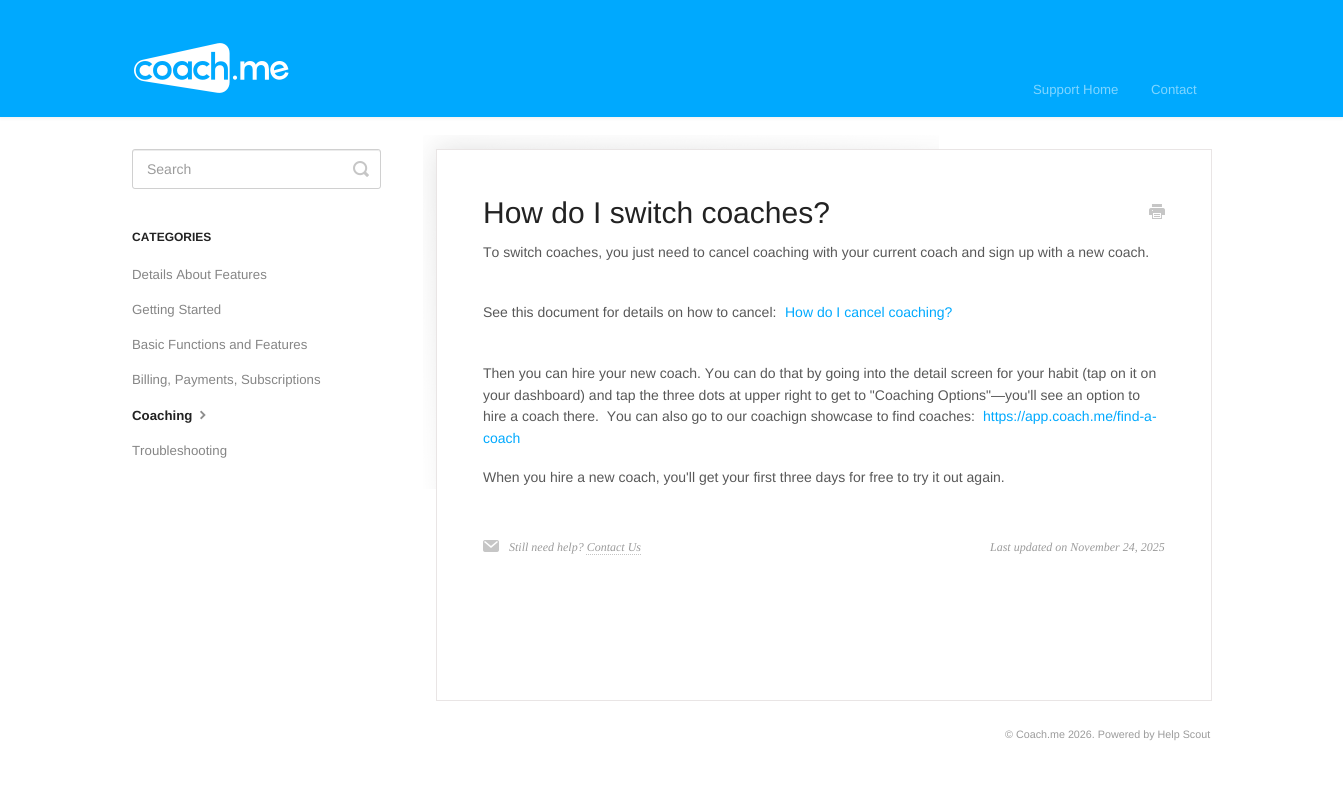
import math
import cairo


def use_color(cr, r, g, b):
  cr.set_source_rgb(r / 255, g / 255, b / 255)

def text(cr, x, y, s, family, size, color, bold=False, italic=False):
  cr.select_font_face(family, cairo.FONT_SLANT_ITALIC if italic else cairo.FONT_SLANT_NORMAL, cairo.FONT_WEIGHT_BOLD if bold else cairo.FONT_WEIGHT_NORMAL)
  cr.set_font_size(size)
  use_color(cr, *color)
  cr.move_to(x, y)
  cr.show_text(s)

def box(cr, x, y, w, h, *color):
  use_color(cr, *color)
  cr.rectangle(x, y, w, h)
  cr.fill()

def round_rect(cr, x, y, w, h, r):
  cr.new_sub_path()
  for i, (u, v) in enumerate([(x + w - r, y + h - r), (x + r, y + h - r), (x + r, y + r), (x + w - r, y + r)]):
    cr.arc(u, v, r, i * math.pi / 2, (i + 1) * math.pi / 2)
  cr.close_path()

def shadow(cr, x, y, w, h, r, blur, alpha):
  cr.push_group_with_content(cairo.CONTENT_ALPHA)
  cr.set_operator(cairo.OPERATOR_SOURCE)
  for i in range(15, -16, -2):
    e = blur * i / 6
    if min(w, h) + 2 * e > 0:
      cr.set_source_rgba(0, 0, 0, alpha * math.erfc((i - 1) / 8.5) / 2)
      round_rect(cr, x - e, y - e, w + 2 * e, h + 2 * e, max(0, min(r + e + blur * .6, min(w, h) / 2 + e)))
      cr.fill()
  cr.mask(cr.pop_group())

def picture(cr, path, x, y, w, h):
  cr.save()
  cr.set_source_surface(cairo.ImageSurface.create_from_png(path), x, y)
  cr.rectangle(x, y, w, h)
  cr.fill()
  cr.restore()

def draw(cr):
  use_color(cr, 255, 255, 255)
  cr.paint()
  use_color(cr, 0, 0, 0)
  shadow(cr, 0, 1, 1343, 117, 0, 2, 0.07)
  box(cr, 0, 0, 1343, 117, 0, 169, 254)
  picture(cr, "img_01.png", 134, 43, 155, 50)
  use_color(cr, 236, 236, 236)
  cr.new_path()
  cr.move_to(135, 151)
  cr.line_to(378, 151)
  cr.curve_to(379, 151, 380, 152, 380, 153)
  cr.line_to(380, 151)
  cr.line_to(378, 150)
  cr.line_to(135, 150)
  cr.curve_to(133, 150, 133, 152, 133, 153)
  cr.curve_to(133, 152, 134, 151, 135, 151)
  cr.close_path()
  cr.fill()
  round_rect(cr, 132.5, 149.5, 248, 39, 2.5)
  use_color(cr, 208, 208, 208)
  cr.set_line_width(1)
  cr.stroke()
  picture(cr, "img_02.png", 353, 161, 16, 16)
  picture(cr, "img_03.png", 200, 410, 6, 10)
  picture(cr, "img_04.png", 423, 135, 516, 354)
  cr.rectangle(436.5, 149.5, 775, 551)
  use_color(cr, 233, 229, 229)
  cr.stroke()
  picture(cr, "img_05.png", 1149, 204, 16, 15)
  picture(cr, "img_06.png", 483, 540, 16, 12)
  cr.new_path()
  cr.move_to(586, 554.5)
  cr.line_to(641, 554.5)
  use_color(cr, 197, 197, 197)
  cr.set_dash([1, 1])
  cr.stroke()
  text(cr, 1033, 94, "Support Home", "Liberation Sans", 13.25, (128, 213, 255))
  text(cr, 1151, 94, "Contact", "Liberation Sans", 13.25, (128, 213, 255))
  text(cr, 147, 174, "Search", "Liberation Sans", 14, (155, 155, 155))
  text(cr, 132, 241, "CATEGORIES", "Liberation Sans", 12, (34, 34, 34), bold=True)
  text(cr, 132, 279, "Details About Features", "Liberation Sans", 13.25, (133, 133, 133))
  text(cr, 132, 314, "Getting Started", "Liberation Sans", 13.25, (133, 133, 133))
  text(cr, 132, 349, "Basic Functions and Features", "Liberation Sans", 13.25, (133, 133, 133))
  text(cr, 132, 384, "Billing, Payments, Subscriptions", "Liberation Sans", 13.25, (133, 133, 133))
  text(cr, 132, 420, "Coaching", "Liberation Sans", 13.25, (34, 34, 34), bold=True)
  text(cr, 132, 455, "Troubleshooting", "Liberation Sans", 13.25, (133, 133, 133))
  text(cr, 483, 223, "How do I switch coaches?", "Liberation Sans", 30, (34, 34, 34))
  text(cr, 483, 257, "To switch coaches, you just need to cancel coaching with your current coach and sign up with a new coach.", "Liberation Sans", 14, (88, 88, 88))
  text(cr, 483, 317, "See this document for details on how to cancel:", "Liberation Sans", 14, (88, 88, 88))
  text(cr, 785, 317, "How do I cancel coaching?", "Liberation Sans", 14, (0, 169, 254))
  text(cr, 483, 378, "Then you can hire your new coach. You can do that by going into the detail screen for your habit (tap on it on", "Liberation Sans", 14, (88, 88, 88))
  text(cr, 483, 400, "your dashboard) and tap the three dots at upper right to get to \"Coaching Options\"—you'll see an option to", "Liberation Sans", 14, (88, 88, 88))
  text(cr, 483, 421, "hire a coach there.  You can also go to our coachign showcase to find coaches:", "Liberation Sans", 14, (88, 88, 88))
  text(cr, 983, 421, "https://app.coach.me/find-a-", "Liberation Sans", 14, (0, 169, 254))
  text(cr, 483, 443, "coach", "Liberation Sans", 14, (0, 169, 254))
  text(cr, 483, 482, "When you hire a new coach, you'll get your first three days for free to try it out again.", "Liberation Sans", 14, (88, 88, 88))
  text(cr, 509, 551, "Still need help? Contact Us", "Liberation Serif", 12, (155, 155, 155), italic=True)
  text(cr, 990, 551, "Last updated on November 24, 2025", "Liberation Serif", 12, (155, 155, 155), italic=True)
  text(cr, 1005, 738, "© Coach.me 2026. Powered by Help Scout", "Liberation Sans", 10.75, (155, 155, 155))


surface = cairo.ImageSurface(cairo.FORMAT_RGB24, 1343, 791)
cr = cairo.Context(surface)
options = cairo.FontOptions()
options.set_hint_metrics(cairo.HINT_METRICS_OFF)
options.set_hint_style(cairo.HINT_STYLE_NONE)
cr.set_font_options(options)
cr.set_miter_limit(4)
draw(cr)
surface.write_to_png("out.png")
